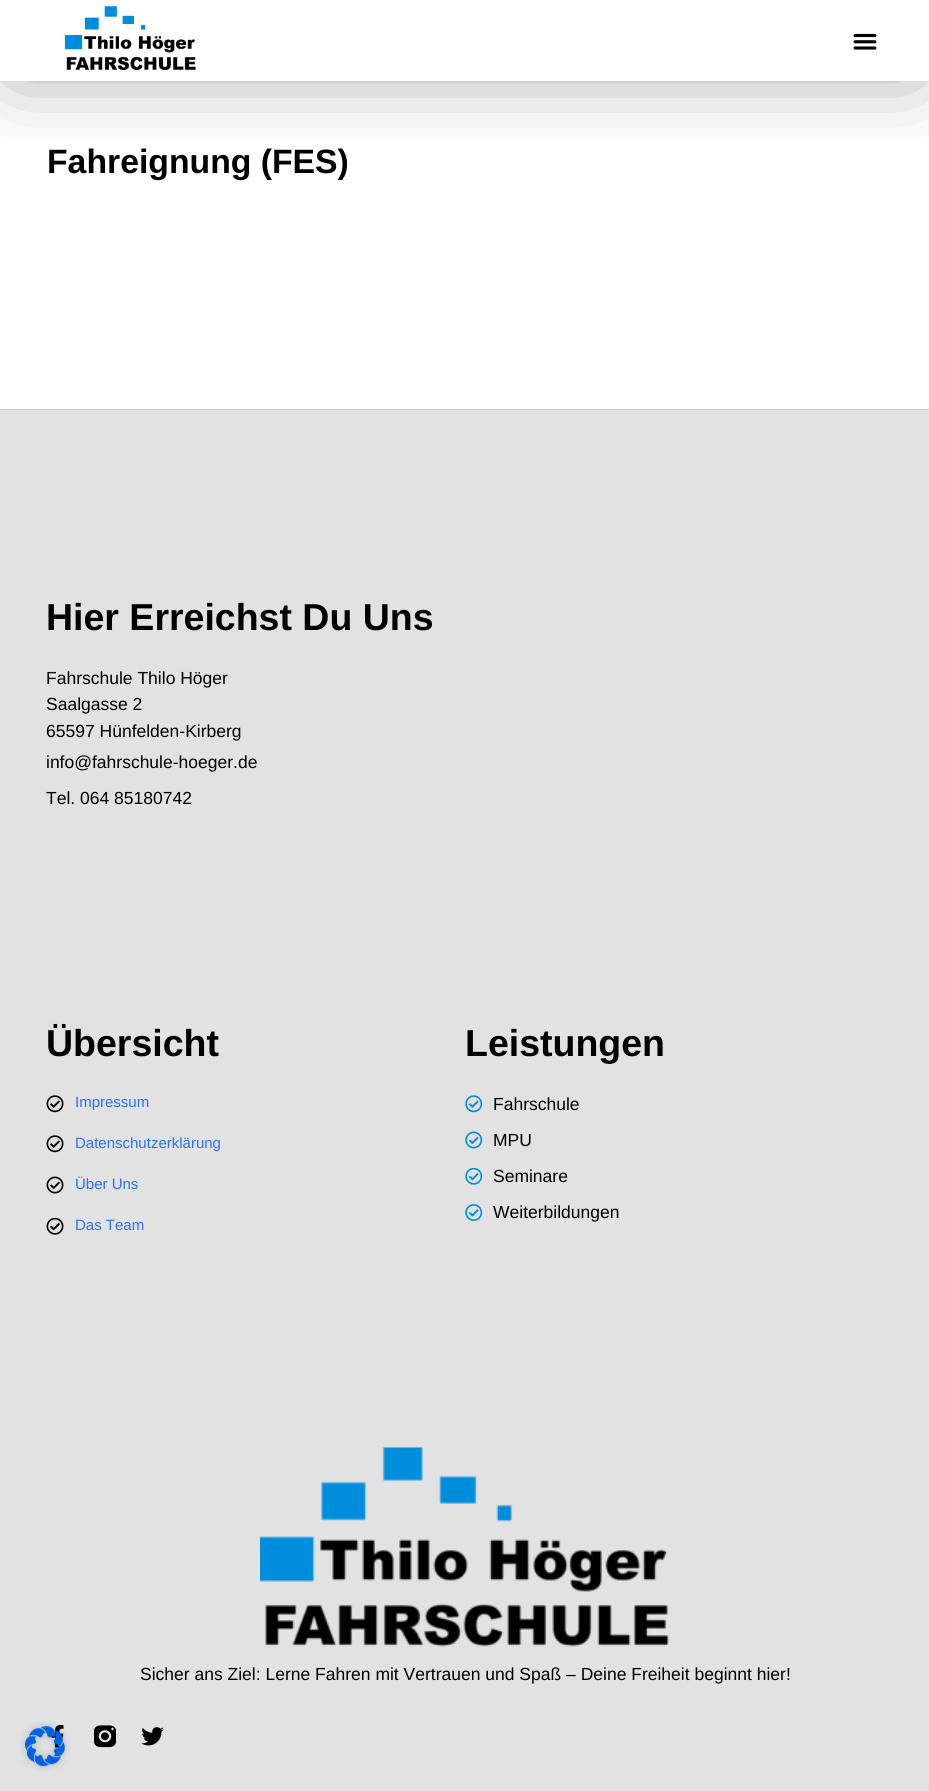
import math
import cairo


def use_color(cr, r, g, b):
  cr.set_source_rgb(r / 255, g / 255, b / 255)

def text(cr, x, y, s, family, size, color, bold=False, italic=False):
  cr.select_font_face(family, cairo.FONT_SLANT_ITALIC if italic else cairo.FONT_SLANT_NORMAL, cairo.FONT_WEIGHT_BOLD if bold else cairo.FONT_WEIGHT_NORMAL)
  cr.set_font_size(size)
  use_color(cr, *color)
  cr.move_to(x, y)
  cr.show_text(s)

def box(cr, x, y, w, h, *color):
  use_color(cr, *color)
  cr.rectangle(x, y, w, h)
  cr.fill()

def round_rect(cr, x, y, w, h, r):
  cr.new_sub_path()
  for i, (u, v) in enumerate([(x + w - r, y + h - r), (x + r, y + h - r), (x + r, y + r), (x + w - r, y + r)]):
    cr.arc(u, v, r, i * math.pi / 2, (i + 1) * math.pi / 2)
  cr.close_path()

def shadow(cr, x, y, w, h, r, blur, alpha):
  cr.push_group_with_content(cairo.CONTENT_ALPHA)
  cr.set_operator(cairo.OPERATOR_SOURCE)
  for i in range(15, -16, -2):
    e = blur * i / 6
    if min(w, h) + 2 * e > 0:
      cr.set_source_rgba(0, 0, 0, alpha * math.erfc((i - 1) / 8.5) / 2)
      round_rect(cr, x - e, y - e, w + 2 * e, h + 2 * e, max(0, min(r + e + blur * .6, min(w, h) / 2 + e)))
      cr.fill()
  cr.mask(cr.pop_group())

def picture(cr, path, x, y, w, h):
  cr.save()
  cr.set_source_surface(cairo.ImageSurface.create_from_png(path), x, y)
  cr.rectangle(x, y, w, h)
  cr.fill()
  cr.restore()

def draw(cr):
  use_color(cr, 255, 255, 255)
  cr.paint()
  cr.save()
  cr.rectangle(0, 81, 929, 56)
  cr.clip()
  use_color(cr, 0, 0, 0)
  shadow(cr, 20, 20, 890, 41, 0, 44.5, 0.5)
  cr.restore()
  picture(cr, "img_01.png", 64, 6, 132, 64)
  picture(cr, "img_02.png", 853, 33, 24, 17)
  box(cr, 0, 410, 929, 1381, 227, 226, 226)
  box(cr, 0, 409, 929, 1, 204, 204, 204)
  picture(cr, "img_03.png", 46, 1095, 18, 18)
  picture(cr, "img_03.png", 46, 1135, 18, 18)
  picture(cr, "img_04.png", 46, 1176, 18, 18)
  picture(cr, "img_05.png", 46, 1218, 18, 17)
  picture(cr, "img_06.png", 465, 1095, 18, 18)
  picture(cr, "img_07.png", 465, 1131, 18, 18)
  picture(cr, "img_08.png", 465, 1168, 18, 17)
  picture(cr, "img_09.png", 465, 1204, 18, 17)
  picture(cr, "img_10.png", 260, 1447, 409, 200)
  picture(cr, "img_11.png", 51, 1725, 13, 23)
  picture(cr, "img_12.png", 94, 1725, 22, 23)
  picture(cr, "img_13.png", 141, 1727, 23, 19)
  picture(cr, "img_14.png", 20, 1722, 50, 49)
  text(cr, 47, 173, "Fahreignung (FES)", "Liberation Sans", 33.75, (0, 0, 0), bold=True)
  text(cr, 46, 630, "Hier Erreichst Du Uns", "Liberation Sans", 37.5, (0, 0, 0), bold=True)
  text(cr, 46, 684, "Fahrschule Thilo Höger", "Liberation Sans", 17.5, (0, 0, 0))
  text(cr, 46, 710, "Saalgasse 2", "Liberation Sans", 17.5, (0, 0, 0))
  text(cr, 46, 737, "65597 Hünfelden-Kirberg", "Liberation Sans", 17.5, (0, 0, 0))
  text(cr, 46, 768, "info@fahrschule-hoeger.de", "Liberation Sans", 17.5, (0, 0, 0))
  text(cr, 46, 804, "Tel. 064 85180742", "Liberation Sans", 17.5, (0, 0, 0))
  text(cr, 46, 1056, "Übersicht", "Liberation Sans", 37.5, (0, 0, 0), bold=True)
  text(cr, 75, 1107, "Impressum", "Liberation Sans", 15, (40, 113, 249))
  text(cr, 75, 1148, "Datenschutzerklärung", "Liberation Sans", 15, (40, 113, 249))
  text(cr, 75, 1189, "Über Uns", "Liberation Sans", 15, (40, 113, 249))
  text(cr, 75, 1230, "Das Team", "Liberation Sans", 15, (40, 113, 249))
  text(cr, 465, 1056, "Leistungen", "Liberation Sans", 37.5, (0, 0, 0), bold=True)
  text(cr, 493, 1110, "Fahrschule", "Liberation Sans", 17.5, (0, 0, 0))
  text(cr, 493, 1146, "MPU", "Liberation Sans", 17.5, (0, 0, 0))
  text(cr, 493, 1182, "Seminare", "Liberation Sans", 17.5, (0, 0, 0))
  text(cr, 493, 1218, "Weiterbildungen", "Liberation Sans", 17.5, (0, 0, 0))
  text(cr, 140, 1680, "Sicher ans Ziel: Lerne Fahren mit Vertrauen und Spaß – Deine Freiheit beginnt hier!", "Liberation Sans", 17.5, (0, 0, 0))


surface = cairo.ImageSurface(cairo.FORMAT_RGB24, 929, 1791)
cr = cairo.Context(surface)
options = cairo.FontOptions()
options.set_hint_metrics(cairo.HINT_METRICS_OFF)
options.set_hint_style(cairo.HINT_STYLE_NONE)
cr.set_font_options(options)
cr.set_miter_limit(4)
draw(cr)
surface.write_to_png("out.png")
